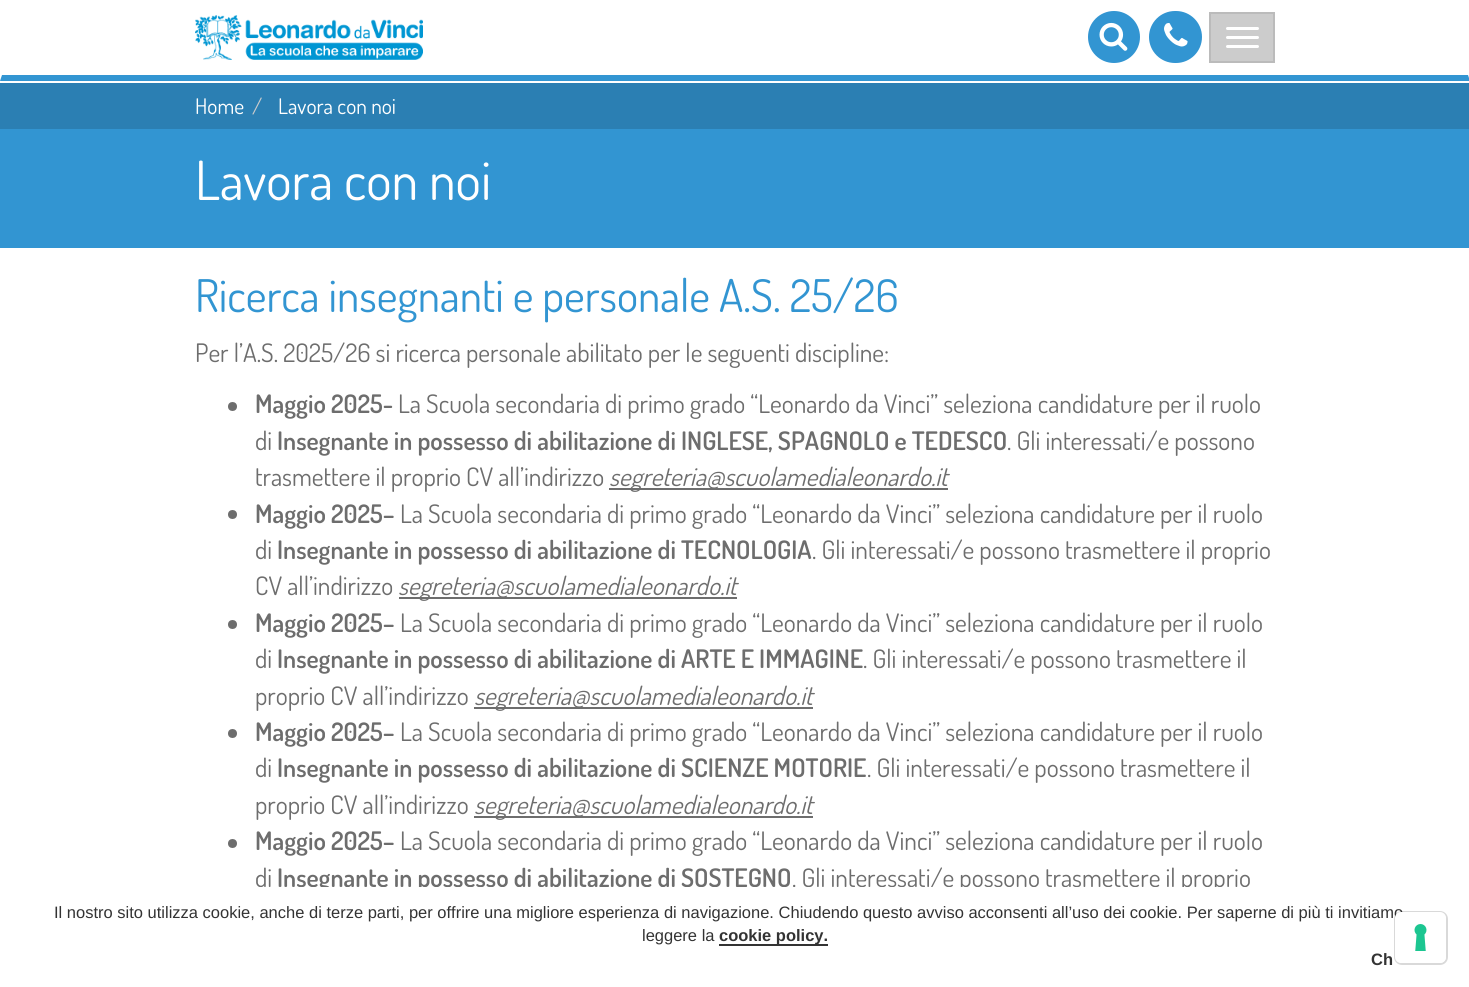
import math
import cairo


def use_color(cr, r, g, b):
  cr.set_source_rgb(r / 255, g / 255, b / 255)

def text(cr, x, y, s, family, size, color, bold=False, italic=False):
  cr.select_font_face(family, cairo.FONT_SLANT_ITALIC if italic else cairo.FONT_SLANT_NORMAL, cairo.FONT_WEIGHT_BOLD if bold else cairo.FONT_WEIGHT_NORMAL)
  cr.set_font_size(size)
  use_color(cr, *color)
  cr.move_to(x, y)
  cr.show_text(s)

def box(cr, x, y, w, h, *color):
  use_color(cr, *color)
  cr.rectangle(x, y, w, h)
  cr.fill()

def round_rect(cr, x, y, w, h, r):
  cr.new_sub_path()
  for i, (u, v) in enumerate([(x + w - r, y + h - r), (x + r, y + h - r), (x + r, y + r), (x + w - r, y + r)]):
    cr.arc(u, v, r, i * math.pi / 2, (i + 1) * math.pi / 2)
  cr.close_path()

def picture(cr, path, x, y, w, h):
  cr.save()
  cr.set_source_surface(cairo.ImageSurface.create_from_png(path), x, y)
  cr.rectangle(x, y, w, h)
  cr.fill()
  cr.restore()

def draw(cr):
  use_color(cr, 255, 255, 255)
  cr.paint()
  use_color(cr, 50, 149, 210)
  cr.new_path()
  cr.move_to(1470, 81)
  cr.line_to(0, 81)
  cr.line_to(2, 75)
  cr.line_to(1468, 75)
  cr.close_path()
  cr.fill()
  picture(cr, "img_01.png", 195, 15, 228, 45)
  cr.arc(1114, 37, 26, 0, 2 * math.pi)
  cr.fill()
  picture(cr, "img_02.png", 1099, 22, 29, 29)
  round_rect(cr, 1149, 11, 53, 52, 26)
  cr.fill()
  picture(cr, "img_03.png", 1164, 23, 24, 24)
  use_color(cr, 204, 204, 204)
  cr.rectangle(1210, 13, 64, 49)
  cr.fill_preserve()
  use_color(cr, 187, 187, 187)
  cr.stroke()
  use_color(cr, 255, 255, 255)
  round_rect(cr, 1226, 27, 33, 3, 1.5)
  cr.fill()
  round_rect(cr, 1226, 36, 33, 3, 1.5)
  cr.fill()
  round_rect(cr, 1226, 45, 33, 3, 1.5)
  cr.fill()
  box(cr, 0, 129, 1469, 119, 50, 149, 210)
  box(cr, 0, 83, 1469, 46, 43, 127, 179)
  use_color(cr, 109, 109, 109)
  cr.arc(232.5, 406.5, 4.5, 0, 2 * math.pi)
  cr.fill()
  box(cr, 609, 488, 339, 2, 109, 109, 109)
  cr.arc(232.5, 514.5, 4.5, 0, 2 * math.pi)
  cr.fill()
  box(cr, 399, 597, 338, 2, 109, 109, 109)
  cr.arc(232.5, 624.5, 4.5, 0, 2 * math.pi)
  cr.fill()
  box(cr, 474, 707, 339, 2, 109, 109, 109)
  cr.arc(232.5, 733.5, 4.5, 0, 2 * math.pi)
  cr.fill()
  box(cr, 474, 816, 339, 2, 109, 109, 109)
  cr.arc(232.5, 843.5, 4.5, 0, 2 * math.pi)
  cr.fill()
  box(cr, 719, 944, 109, 2, 51, 51, 51)
  text(cr, 195, 114, "Home", "Dosis", 21.5, (255, 255, 255))
  text(cr, 252, 114, "/", "Dosis", 21.5, (204, 204, 204))
  text(cr, 278, 114, "Lavora con noi", "Dosis", 21.5, (255, 255, 255))
  text(cr, 195, 200, "Lavora con noi", "Dosis", 54, (255, 255, 255))
  text(cr, 195, 312, "Ricerca insegnanti e personale A.S. 25/26", "Dosis", 45, (50, 149, 210))
  text(cr, 195, 362, "Per l’A.S. 2025/26 si ricerca personale abilitato per le seguenti discipline:", "Dosis", 25.5, (109, 109, 109))
  text(cr, 255, 413, "Maggio 2025-", "Dosis SemiBold", 25.5, (109, 109, 109))
  text(cr, 398, 413, "La Scuola secondaria di primo grado “Leonardo da Vinci” seleziona candidature per il ruolo", "Dosis", 25.5, (109, 109, 109))
  text(cr, 255, 450, "di", "Dosis", 25.5, (109, 109, 109))
  text(cr, 277, 450, "Insegnante in possesso di abilitazione di INGLESE, SPAGNOLO e TEDESCO", "Dosis SemiBold", 25.5, (109, 109, 109))
  text(cr, 1007, 450, ". Gli interessati/e possono", "Dosis", 25.5, (109, 109, 109))
  text(cr, 255, 486, "trasmettere il proprio CV all’indirizzo", "Dosis", 25.5, (109, 109, 109))
  text(cr, 609, 486, "segreteria@scuolamedialeonardo.it", "Dosis", 25.5, (109, 109, 109), italic=True)
  text(cr, 255, 523, "Maggio 2025–", "Dosis SemiBold", 25.5, (109, 109, 109))
  text(cr, 400, 523, "La Scuola secondaria di primo grado “Leonardo da Vinci” seleziona candidature per il ruolo", "Dosis", 25.5, (109, 109, 109))
  text(cr, 255, 559, "di", "Dosis", 25.5, (109, 109, 109))
  text(cr, 277, 559, "Insegnante in possesso di abilitazione di TECNOLOGIA", "Dosis SemiBold", 25.5, (109, 109, 109))
  text(cr, 812, 559, ". Gli interessati/e possono trasmettere il proprio", "Dosis", 25.5, (109, 109, 109))
  text(cr, 255, 595, "CV all’indirizzo", "Dosis", 25.5, (109, 109, 109))
  text(cr, 398, 595, "segreteria@scuolamedialeonardo.it", "Dosis", 25.5, (109, 109, 109), italic=True)
  text(cr, 255, 632, "Maggio 2025–", "Dosis SemiBold", 25.5, (109, 109, 109))
  text(cr, 400, 632, "La Scuola secondaria di primo grado “Leonardo da Vinci” seleziona candidature per il ruolo", "Dosis", 25.5, (109, 109, 109))
  text(cr, 255, 668, "di", "Dosis", 25.5, (109, 109, 109))
  text(cr, 277, 668, "Insegnante in possesso di abilitazione di ARTE E IMMAGINE", "Dosis SemiBold", 25.5, (109, 109, 109))
  text(cr, 863, 668, ". Gli interessati/e possono trasmettere il", "Dosis", 25.5, (109, 109, 109))
  text(cr, 255, 705, "proprio CV all’indirizzo", "Dosis", 25.5, (109, 109, 109))
  text(cr, 474, 705, "segreteria@scuolamedialeonardo.it", "Dosis", 25.5, (109, 109, 109), italic=True)
  text(cr, 255, 741, "Maggio 2025–", "Dosis SemiBold", 25.5, (109, 109, 109))
  text(cr, 400, 741, "La Scuola secondaria di primo grado “Leonardo da Vinci” seleziona candidature per il ruolo", "Dosis", 25.5, (109, 109, 109))
  text(cr, 255, 777, "di", "Dosis", 25.5, (109, 109, 109))
  text(cr, 277, 777, "Insegnante in possesso di abilitazione di SCIENZE MOTORIE", "Dosis SemiBold", 25.5, (109, 109, 109))
  text(cr, 867, 777, ". Gli interessati/e possono trasmettere il", "Dosis", 25.5, (109, 109, 109))
  text(cr, 255, 814, "proprio CV all’indirizzo", "Dosis", 25.5, (109, 109, 109))
  text(cr, 474, 814, "segreteria@scuolamedialeonardo.it", "Dosis", 25.5, (109, 109, 109), italic=True)
  text(cr, 255, 850, "Maggio 2025–", "Dosis SemiBold", 25.5, (109, 109, 109))
  text(cr, 400, 850, "La Scuola secondaria di primo grado “Leonardo da Vinci” seleziona candidature per il ruolo", "Dosis", 25.5, (109, 109, 109))
  text(cr, 255, 887, "di", "Dosis", 25.5, (109, 109, 109))
  text(cr, 277, 887, "Insegnante in possesso di abilitazione di SOSTEGNO", "Dosis SemiBold", 25.5, (109, 109, 109))
  text(cr, 792, 887, ". Gli interessati/e possono trasmettere il proprio", "Dosis", 25.5, (109, 109, 109))
  box(cr, 259, 887, 987, 6, 255, 255, 255)
  text(cr, 54, 918, "Il nostro sito utilizza cookie, anche di terze parti, per offrire una migliore esperienza di navigazione. Chiudendo questo avviso acconsenti all’uso dei cookie. Per saperne di più ti invitiamo", "Liberation Sans", 16.5, (51, 51, 51))
  text(cr, 642, 941, "leggere la", "Liberation Sans", 16.5, (51, 51, 51))
  text(cr, 719, 941, "cookie policy.", "Liberation Sans", 16.5, (51, 51, 51), bold=True)
  text(cr, 1371, 965, "Ch", "Liberation Sans", 16.5, (51, 51, 51), bold=True)
  round_rect(cr, 1395, 912, 52, 52, 7)
  cr.set_source_rgba(0, 0, 0, 0.15)
  cr.stroke()
  use_color(cr, 255, 255, 255)
  round_rect(cr, 1395, 912, 51, 51, 6)
  cr.fill()
  picture(cr, "img_04.png", 1414, 924, 13, 27)


surface = cairo.ImageSurface(cairo.FORMAT_RGB24, 1469, 987)
cr = cairo.Context(surface)
options = cairo.FontOptions()
options.set_hint_metrics(cairo.HINT_METRICS_OFF)
options.set_hint_style(cairo.HINT_STYLE_NONE)
cr.set_font_options(options)
cr.set_miter_limit(4)
draw(cr)
surface.write_to_png("out.png")
